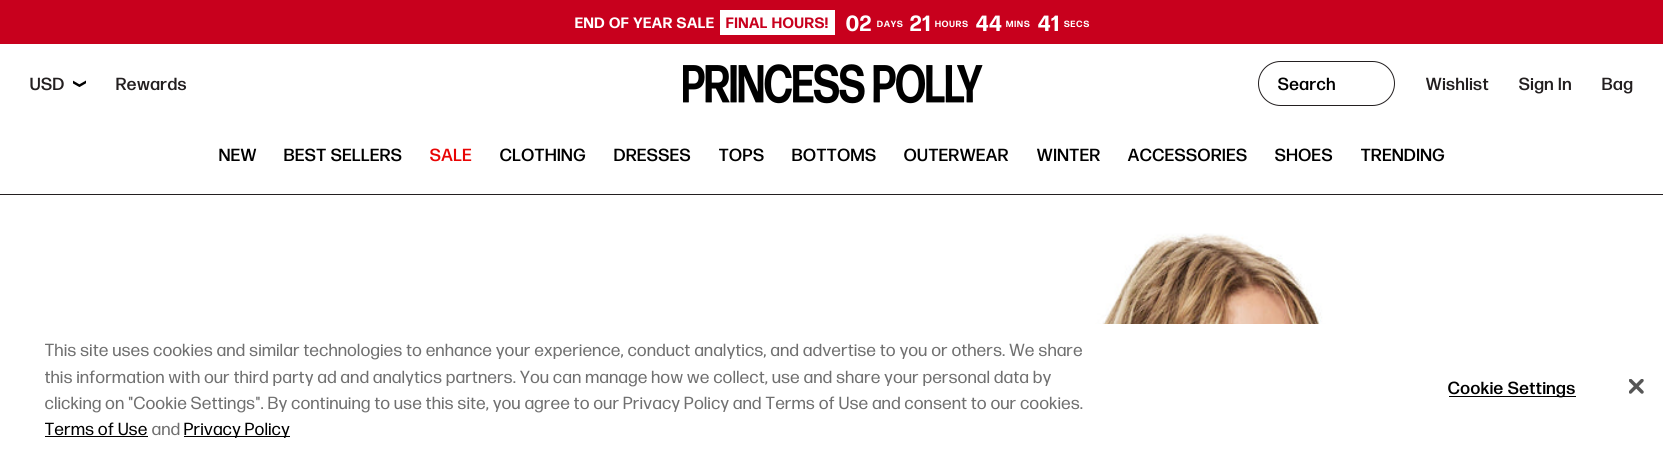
import math
import cairo


def use_color(cr, r, g, b):
  cr.set_source_rgb(r / 255, g / 255, b / 255)

def spaced_text(cr, x, y, s, letter, word):
  cr.move_to(x, y)
  for ch in s:
    cr.show_text(ch)
    cr.rel_move_to(letter + word * (ch == ' '), 0)

def box(cr, x, y, w, h, *color):
  use_color(cr, *color)
  cr.rectangle(x, y, w, h)
  cr.fill()

def round_rect(cr, x, y, w, h, r):
  cr.new_sub_path()
  for i, (u, v) in enumerate([(x + w - r, y + h - r), (x + r, y + h - r), (x + r, y + r), (x + w - r, y + r)]):
    cr.arc(u, v, r, i * math.pi / 2, (i + 1) * math.pi / 2)
  cr.close_path()

def picture(cr, path, x, y, w, h):
  cr.save()
  cr.set_source_surface(cairo.ImageSurface.create_from_png(path), x, y)
  cr.rectangle(x, y, w, h)
  cr.fill()
  cr.restore()

def draw(cr):
  use_color(cr, 255, 255, 255)
  cr.paint()
  box(cr, 0, 0, 1663, 44, 200, 0, 29)
  box(cr, 720, 10, 115, 25, 255, 255, 255)
  picture(cr, "img_01.png", 73, 80, 13, 7)
  picture(cr, "img_02.png", 683, 64, 300, 40)
  round_rect(cr, 1258.5, 61.5, 136, 44, 22)
  use_color(cr, 35, 31, 32)
  cr.set_line_width(1)
  cr.stroke()
  box(cr, 0, 194, 1663, 1, 35, 31, 32)
  picture(cr, "img_03.png", 388, 233, 970, 91)
  box(cr, 45, 436, 103, 1, 0, 0, 0)
  box(cr, 184, 436, 106, 1, 0, 0, 0)
  box(cr, 1449, 396, 127, 1, 0, 0, 0)
  picture(cr, "img_04.png", 1629, 379, 15, 15)
  cr.select_font_face("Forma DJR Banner", cairo.FONT_SLANT_NORMAL, cairo.FONT_WEIGHT_BOLD)
  cr.set_font_size(15)
  use_color(cr, 255, 255, 255)
  spaced_text(cr, 575, 28, "END OF YEAR SALE", 1, 0)
  use_color(cr, 200, 0, 29)
  spaced_text(cr, 726, 28, "FINAL HOURS!", 1, 0)
  cr.set_font_size(22)
  use_color(cr, 255, 255, 255)
  spaced_text(cr, 846, 31, "02", 1, 0)
  cr.set_font_size(9)
  spaced_text(cr, 877, 27, "DAYS", 1, 0)
  cr.set_font_size(22)
  spaced_text(cr, 910, 31, "21", 1, 0)
  cr.set_font_size(9)
  spaced_text(cr, 935, 27, "HOURS", 1, 0)
  cr.set_font_size(22)
  spaced_text(cr, 976, 31, "44", 1, 0)
  cr.set_font_size(9)
  spaced_text(cr, 1006, 27, "MINS", 1, 0)
  cr.set_font_size(22)
  spaced_text(cr, 1038, 31, "41", 1, 0)
  cr.set_font_size(9)
  spaced_text(cr, 1064, 27, "SECS", 1, 0)
  cr.select_font_face("Forma DJR Banner Medium")
  cr.set_font_size(17.5)
  use_color(cr, 35, 31, 32)
  spaced_text(cr, 30, 90, "USD", 1, 0)
  spaced_text(cr, 116, 90, "Rewards", 1, 0)
  use_color(cr, 0, 0, 0)
  spaced_text(cr, 1278, 90, "Search", 1, 0)
  use_color(cr, 35, 31, 32)
  spaced_text(cr, 1426, 90, "Wishlist", 1, 0)
  spaced_text(cr, 1519, 90, "Sign In", 1, 0)
  spaced_text(cr, 1602, 90, "Bag", 1, 0)
  use_color(cr, 0, 0, 0)
  spaced_text(cr, 219, 161, "NEW", 1, 0)
  spaced_text(cr, 284, 161, "BEST SELLERS", 1, 0)
  use_color(cr, 232, 4, 4)
  spaced_text(cr, 430, 161, "SALE", 1, 0)
  use_color(cr, 0, 0, 0)
  spaced_text(cr, 500, 161, "CLOTHING", 1, 0)
  spaced_text(cr, 614, 161, "DRESSES", 1, 0)
  spaced_text(cr, 719, 161, "TOPS", 1, 0)
  spaced_text(cr, 792, 161, "BOTTOMS", 1, 0)
  spaced_text(cr, 904, 161, "OUTERWEAR", 1, 0)
  spaced_text(cr, 1037, 161, "WINTER", 1, 0)
  spaced_text(cr, 1128, 161, "ACCESSORIES", 1, 0)
  spaced_text(cr, 1275, 161, "SHOES", 1, 0)
  spaced_text(cr, 1361, 161, "TRENDING", 1, 0)
  cr.select_font_face("Forma DJR Banner")
  use_color(cr, 112, 112, 112)
  spaced_text(cr, 45, 356, "This site uses cookies and similar technologies to enhance your experience, conduct analytics, and advertise to you or others. We share", 1, 0)
  spaced_text(cr, 45, 383, "this information with our third party ad and analytics partners. You can manage how we collect, use and share your personal data by", 1, 0)
  spaced_text(cr, 45, 409, "clicking on \"Cookie Settings\". By continuing to use this site, you agree to our Privacy Policy and Terms of Use and consent to our cookies.", 1, 0)
  use_color(cr, 0, 0, 0)
  spaced_text(cr, 45, 435, "Terms of Use", 1, 0)
  use_color(cr, 112, 112, 112)
  spaced_text(cr, 152, 435, "and", 1, 0)
  use_color(cr, 0, 0, 0)
  spaced_text(cr, 184, 435, "Privacy Policy", 1, 0)
  cr.select_font_face("Forma DJR Banner Medium")
  spaced_text(cr, 1448, 394, "Cookie Settings", 1, 0)


surface = cairo.ImageSurface(cairo.FORMAT_RGB24, 1663, 453)
cr = cairo.Context(surface)
options = cairo.FontOptions()
options.set_hint_metrics(cairo.HINT_METRICS_OFF)
options.set_hint_style(cairo.HINT_STYLE_NONE)
cr.set_font_options(options)
cr.set_miter_limit(4)
draw(cr)
surface.write_to_png("out.png")
